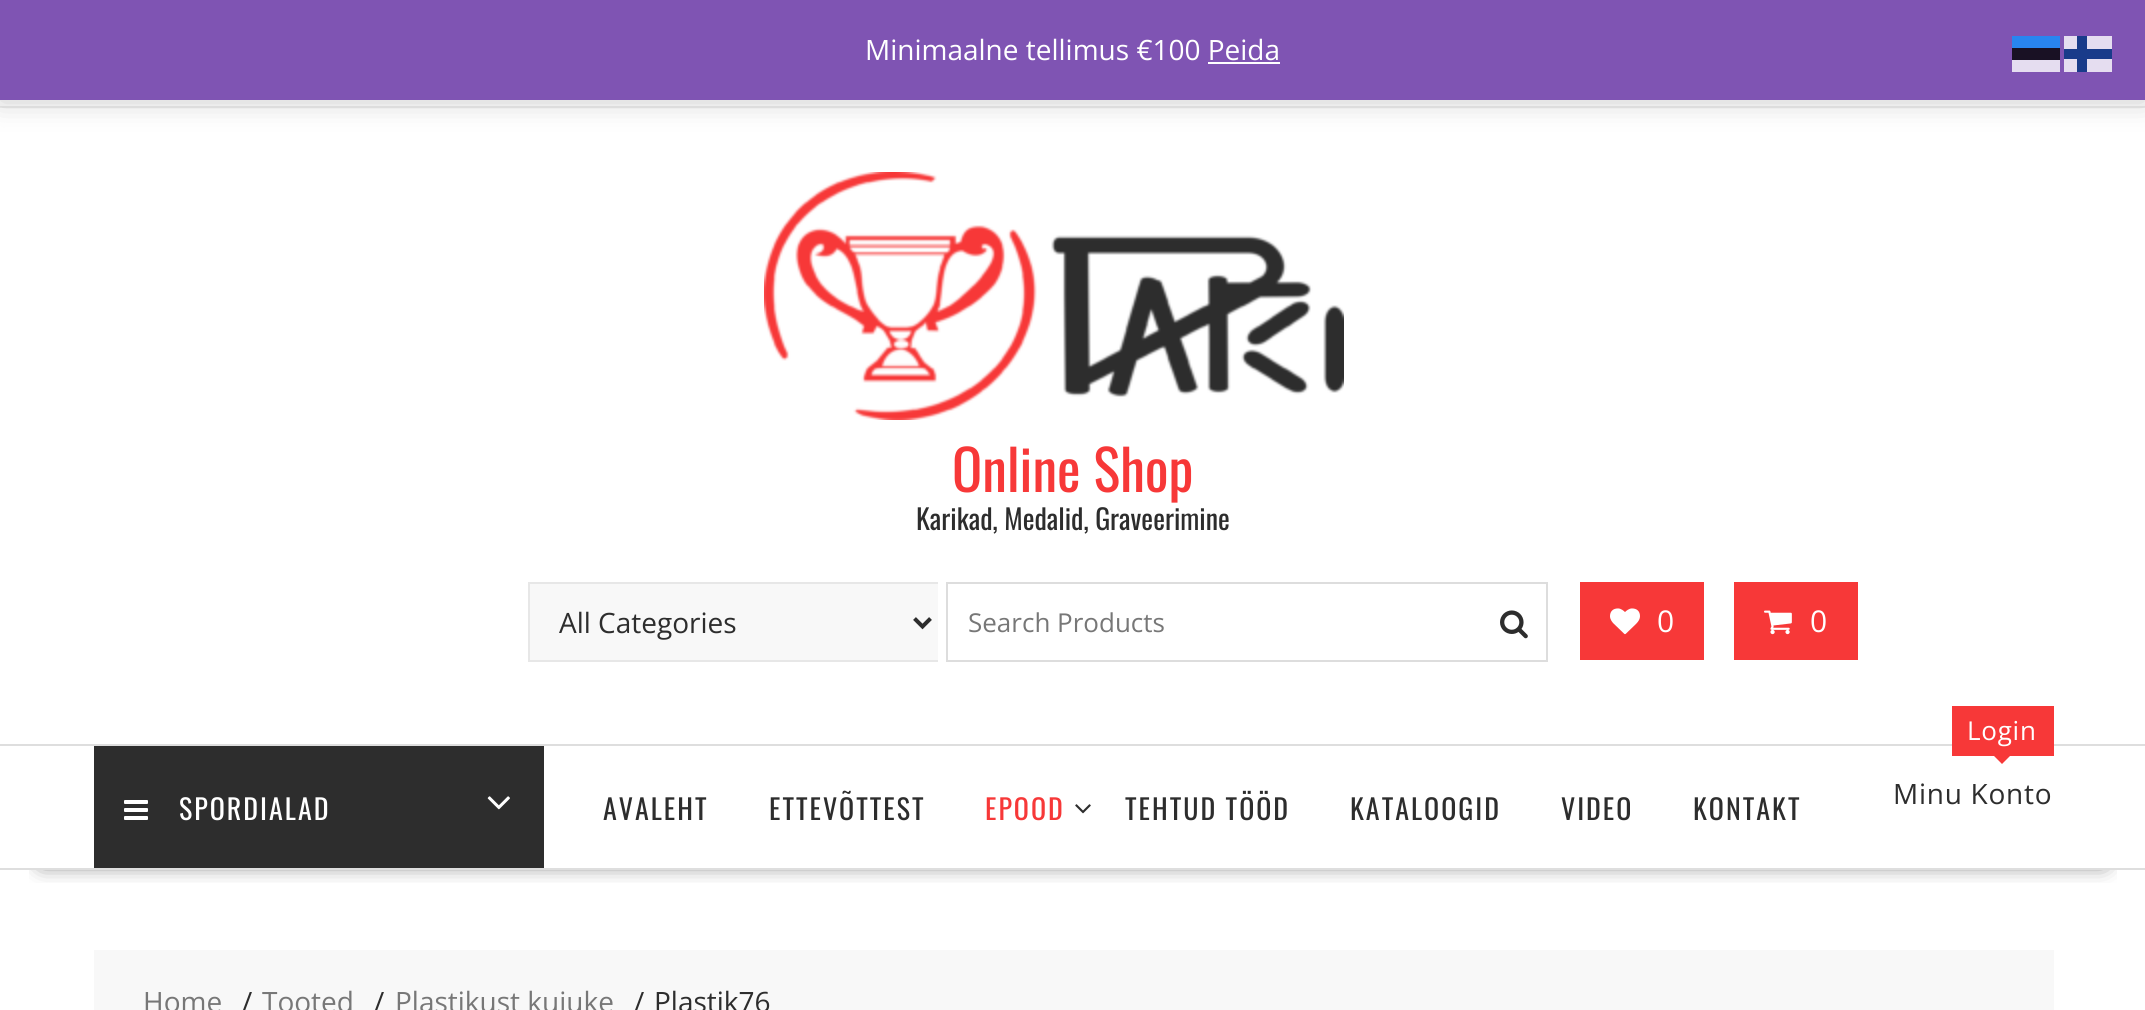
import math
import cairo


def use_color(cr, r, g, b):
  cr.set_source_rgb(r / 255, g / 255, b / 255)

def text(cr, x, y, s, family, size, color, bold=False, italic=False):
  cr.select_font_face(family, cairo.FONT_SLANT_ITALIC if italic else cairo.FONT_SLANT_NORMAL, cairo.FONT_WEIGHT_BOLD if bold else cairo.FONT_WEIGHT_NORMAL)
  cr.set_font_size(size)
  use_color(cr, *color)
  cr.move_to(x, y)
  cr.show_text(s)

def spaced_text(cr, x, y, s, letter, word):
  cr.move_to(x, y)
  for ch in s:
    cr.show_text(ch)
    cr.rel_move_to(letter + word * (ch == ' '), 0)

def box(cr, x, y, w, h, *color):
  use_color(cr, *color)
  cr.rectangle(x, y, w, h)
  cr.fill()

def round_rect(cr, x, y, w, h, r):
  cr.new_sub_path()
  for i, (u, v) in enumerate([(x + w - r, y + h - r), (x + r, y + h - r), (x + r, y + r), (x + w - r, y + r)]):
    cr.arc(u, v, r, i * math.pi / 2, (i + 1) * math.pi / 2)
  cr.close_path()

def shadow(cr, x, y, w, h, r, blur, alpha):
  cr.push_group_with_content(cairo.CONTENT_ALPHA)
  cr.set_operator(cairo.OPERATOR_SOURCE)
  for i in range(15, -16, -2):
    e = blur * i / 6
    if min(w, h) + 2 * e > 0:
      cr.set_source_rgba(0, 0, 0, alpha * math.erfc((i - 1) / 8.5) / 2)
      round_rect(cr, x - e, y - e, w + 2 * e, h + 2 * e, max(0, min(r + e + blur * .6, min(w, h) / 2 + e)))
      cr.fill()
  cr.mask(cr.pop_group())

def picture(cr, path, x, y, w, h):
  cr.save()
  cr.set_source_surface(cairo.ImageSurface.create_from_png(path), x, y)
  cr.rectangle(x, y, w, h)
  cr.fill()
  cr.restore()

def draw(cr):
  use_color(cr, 255, 255, 255)
  cr.paint()
  box(cr, 0, 106, 2145, 2, 238, 238, 238)
  use_color(cr, 0, 0, 0)
  shadow(cr, 0, 2, 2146, 100, 0, 14, 0.2)
  box(cr, 0, 0, 2145, 100, 127, 84, 179)
  box(cr, 1208, 62, 72, 2, 255, 255, 255)
  box(cr, 2012, 36, 48, 12, 40, 133, 240)
  box(cr, 2064, 36, 48, 36, 229, 221, 240)
  box(cr, 2012, 48, 48, 12, 25, 17, 36)
  box(cr, 2064, 49, 48, 10, 25, 59, 138)
  box(cr, 2077, 36, 10, 36, 25, 59, 138)
  box(cr, 2012, 60, 48, 12, 229, 221, 240)
  picture(cr, "img_01.png", 764, 172, 580, 248)
  box(cr, 530, 584, 408, 76, 248, 248, 248)
  box(cr, 528, 582, 410, 2, 231, 231, 231)
  box(cr, 528, 660, 410, 2, 231, 231, 231)
  box(cr, 528, 582, 2, 80, 231, 231, 231)
  cr.new_path()
  cr.move_to(914.5, 618.5)
  cr.line_to(922.5, 626.5)
  cr.line_to(930.5, 618.5)
  use_color(cr, 45, 45, 45)
  cr.set_line_width(4)
  cr.stroke()
  cr.rectangle(947, 583, 600, 78)
  use_color(cr, 221, 221, 221)
  cr.set_line_width(2)
  cr.stroke()
  picture(cr, "img_02.png", 1500, 610, 28, 29)
  box(cr, 1580, 582, 124, 78, 247, 56, 56)
  picture(cr, "img_03.png", 1610, 608, 30, 27)
  box(cr, 1734, 582, 124, 78, 247, 56, 56)
  picture(cr, "img_04.png", 1764, 610, 28, 25)
  cr.save()
  cr.rectangle(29, 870, 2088, 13)
  cr.clip()
  use_color(cr, 0, 0, 0)
  shadow(cr, 42, 820, 2062, 42, 0, 11, 0.75)
  cr.restore()
  box(cr, 0, 744, 2145, 2, 222, 222, 222)
  box(cr, 0, 868, 2145, 2, 222, 222, 222)
  box(cr, 94, 746, 450, 122, 45, 45, 45)
  picture(cr, "img_05.png", 124, 800, 24, 20)
  picture(cr, "img_06.png", 487, 796, 23, 14)
  picture(cr, "img_07.png", 1075, 804, 16, 10)
  box(cr, 1952, 706, 102, 50, 247, 56, 56)
  cr.new_path()
  cr.move_to(1992, 754)
  cr.line_to(2012, 754)
  cr.line_to(2002, 764)
  cr.close_path()
  cr.fill()
  box(cr, 94, 950, 1960, 60, 248, 248, 248)
  text(cr, 865, 60, "Minimaalne tellimus €100 Peida", "Open Sans", 28, (255, 255, 255))
  text(cr, 952, 492, "Online Shop", "Oswald", 56, (247, 56, 56))
  text(cr, 916, 530, "Karikad, Medalid, Graveerimine", "Oswald", 28, (45, 45, 45))
  text(cr, 559, 633, "All Categories", "Open Sans", 28, (45, 45, 45))
  text(cr, 968, 632, "Search Products", "Open Sans", 26, (119, 119, 119))
  text(cr, 1657, 632, "0", "Open Sans", 30, (255, 255, 255))
  text(cr, 1810, 632, "0", "Open Sans", 30, (255, 255, 255))
  cr.select_font_face("Oswald")
  cr.set_font_size(28)
  spaced_text(cr, 179, 820, "SPORDIALAD", 2, 0)
  use_color(cr, 45, 45, 45)
  spaced_text(cr, 603, 820, "AVALEHT", 2, 0)
  spaced_text(cr, 769, 820, "ETTEVÕTTEST", 2, 0)
  use_color(cr, 247, 56, 56)
  spaced_text(cr, 985, 820, "EPOOD", 2, 0)
  use_color(cr, 45, 45, 45)
  spaced_text(cr, 1125, 820, "TEHTUD TÖÖD", 2, 0)
  spaced_text(cr, 1350, 820, "KATALOOGID", 2, 0)
  spaced_text(cr, 1561, 820, "VIDEO", 2, 0)
  spaced_text(cr, 1693, 820, "KONTAKT", 2, 0)
  cr.select_font_face("Open Sans")
  cr.set_font_size(26)
  use_color(cr, 255, 255, 255)
  spaced_text(cr, 1967, 740, "Login", 0.75, 0)
  cr.set_font_size(28)
  use_color(cr, 45, 45, 45)
  spaced_text(cr, 1893, 804, "Minu Konto", 0.75, 0)
  text(cr, 143, 1012, "Home", "Open Sans", 28, (119, 119, 119))
  text(cr, 242, 1012, "/", "Open Sans", 28, (45, 45, 45))
  text(cr, 262, 1012, "Tooted", "Open Sans", 28, (119, 119, 119))
  text(cr, 374, 1012, "/", "Open Sans", 28, (45, 45, 45))
  text(cr, 395, 1012, "Plastikust kujuke", "Open Sans", 28, (119, 119, 119))
  text(cr, 634, 1012, "/", "Open Sans", 28, (45, 45, 45))
  text(cr, 654, 1012, "Plastik76", "Open Sans", 28, (45, 45, 45))


surface = cairo.ImageSurface(cairo.FORMAT_RGB24, 2145, 1010)
cr = cairo.Context(surface)
options = cairo.FontOptions()
options.set_hint_metrics(cairo.HINT_METRICS_OFF)
options.set_hint_style(cairo.HINT_STYLE_NONE)
cr.set_font_options(options)
cr.set_miter_limit(4)
draw(cr)
surface.write_to_png("out.png")
